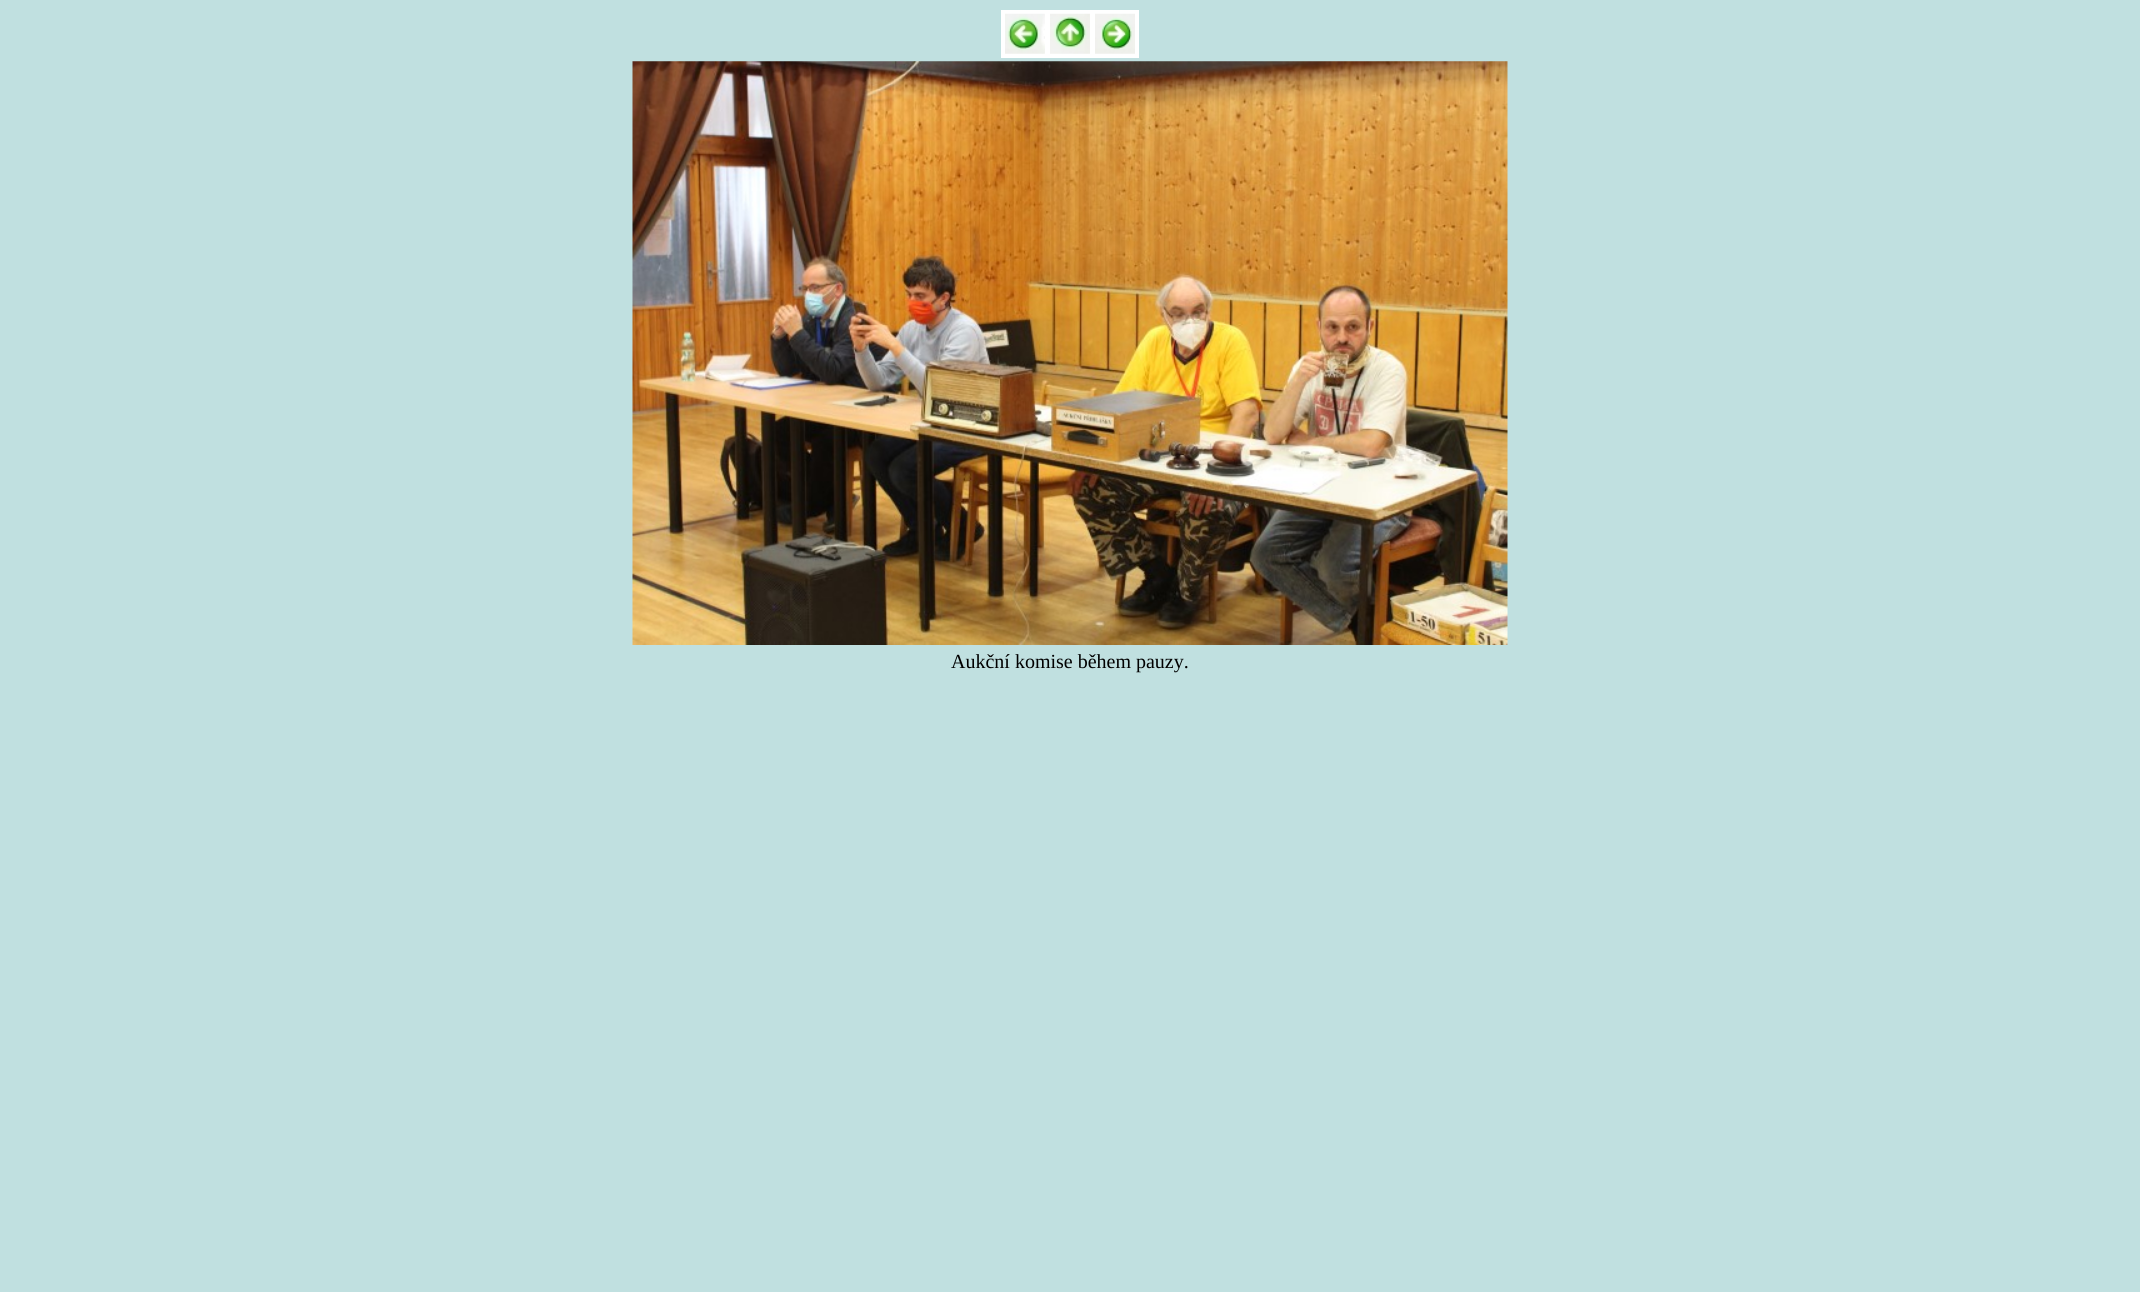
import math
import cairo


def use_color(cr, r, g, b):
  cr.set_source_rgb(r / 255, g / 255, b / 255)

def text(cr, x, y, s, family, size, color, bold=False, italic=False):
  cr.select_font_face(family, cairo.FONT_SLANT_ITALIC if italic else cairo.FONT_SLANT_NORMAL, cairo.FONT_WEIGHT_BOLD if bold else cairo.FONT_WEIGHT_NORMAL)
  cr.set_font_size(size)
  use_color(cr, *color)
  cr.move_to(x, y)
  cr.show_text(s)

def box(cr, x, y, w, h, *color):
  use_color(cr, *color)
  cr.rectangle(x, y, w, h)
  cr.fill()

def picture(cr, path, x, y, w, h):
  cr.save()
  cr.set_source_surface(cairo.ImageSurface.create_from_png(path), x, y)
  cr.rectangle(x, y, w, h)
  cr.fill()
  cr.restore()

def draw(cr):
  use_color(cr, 192, 224, 224)
  cr.paint()
  box(cr, 1001, 10, 138, 48, 255, 255, 255)
  picture(cr, "img_01.png", 1005, 13, 40, 41)
  picture(cr, "img_02.png", 1050, 13, 40, 41)
  picture(cr, "img_03.png", 1095, 13, 40, 41)
  picture(cr, "img_04.png", 632, 61, 876, 584)
  text(cr, 951, 668, "Aukční komise během pauzy.", "Liberation Serif", 20, (0, 0, 0))


surface = cairo.ImageSurface(cairo.FORMAT_RGB24, 2140, 1292)
cr = cairo.Context(surface)
options = cairo.FontOptions()
options.set_hint_metrics(cairo.HINT_METRICS_OFF)
options.set_hint_style(cairo.HINT_STYLE_NONE)
cr.set_font_options(options)
cr.set_miter_limit(4)
draw(cr)
surface.write_to_png("out.png")
